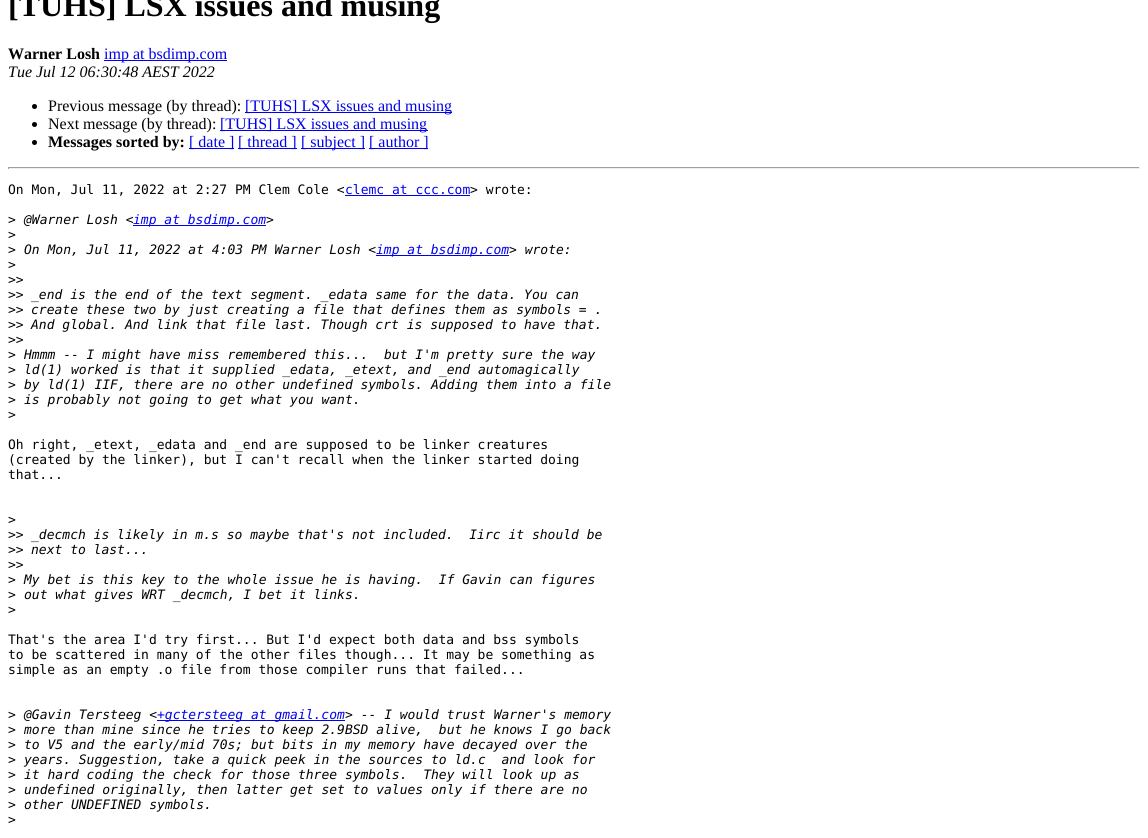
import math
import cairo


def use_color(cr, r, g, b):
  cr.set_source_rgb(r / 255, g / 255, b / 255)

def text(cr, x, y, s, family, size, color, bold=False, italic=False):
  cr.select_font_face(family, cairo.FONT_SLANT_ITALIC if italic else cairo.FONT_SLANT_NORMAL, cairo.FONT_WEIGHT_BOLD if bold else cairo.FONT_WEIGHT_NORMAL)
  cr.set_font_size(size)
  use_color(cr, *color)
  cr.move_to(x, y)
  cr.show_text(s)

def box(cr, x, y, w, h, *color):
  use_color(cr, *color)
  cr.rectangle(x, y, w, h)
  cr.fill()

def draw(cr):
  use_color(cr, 255, 255, 255)
  cr.paint()
  box(cr, 104, 60, 123, 1, 0, 0, 238)
  use_color(cr, 0, 0, 0)
  cr.arc(34.5, 106.5, 2.5, 0, 2 * math.pi)
  cr.fill()
  box(cr, 245, 112, 207, 1, 0, 0, 238)
  use_color(cr, 0, 0, 0)
  cr.arc(34.5, 124.5, 2.5, 0, 2 * math.pi)
  cr.fill()
  box(cr, 220, 130, 208, 1, 0, 0, 238)
  use_color(cr, 0, 0, 0)
  cr.arc(34.5, 142.5, 2.5, 0, 2 * math.pi)
  cr.fill()
  box(cr, 189, 148, 45, 1, 0, 0, 238)
  box(cr, 238, 148, 59, 1, 0, 0, 238)
  box(cr, 301, 148, 64, 1, 0, 0, 238)
  box(cr, 369, 148, 59, 1, 0, 0, 238)
  box(cr, 8, 167, 1132, 1, 159, 159, 159)
  box(cr, 1139, 167, 1, 2, 238, 238, 238)
  box(cr, 8, 168, 1132, 1, 238, 238, 238)
  box(cr, 8, 167, 1, 2, 159, 159, 159)
  box(cr, 345, 195, 125, 1, 0, 0, 238)
  box(cr, 133, 225, 133, 1, 0, 0, 238)
  box(cr, 376, 255, 133, 1, 0, 0, 238)
  box(cr, 157, 720, 188, 1, 0, 0, 238)
  text(cr, 8, 16, "[TUHS] LSX issues and musing", "Liberation Serif", 32, (0, 0, 0), bold=True)
  text(cr, 8, 59, "Warner Losh", "Liberation Serif", 16, (0, 0, 0), bold=True)
  text(cr, 104, 59, "imp at bsdimp.com", "Liberation Serif", 16, (0, 0, 238))
  text(cr, 8, 77, "Tue Jul 12 06:30:48 AEST 2022", "Liberation Serif", 16, (0, 0, 0), italic=True)
  text(cr, 48, 111, "Previous message (by thread):", "Liberation Serif", 16, (0, 0, 0))
  text(cr, 245, 111, "[TUHS] LSX issues and musing", "Liberation Serif", 16, (0, 0, 238))
  text(cr, 48, 129, "Next message (by thread):", "Liberation Serif", 16, (0, 0, 0))
  text(cr, 220, 129, "[TUHS] LSX issues and musing", "Liberation Serif", 16, (0, 0, 238))
  text(cr, 48, 147, "Messages sorted by:", "Liberation Serif", 16, (0, 0, 0), bold=True)
  text(cr, 189, 147, "[ date ]", "Liberation Serif", 16, (0, 0, 238))
  text(cr, 238, 147, "[ thread ]", "Liberation Serif", 16, (0, 0, 238))
  text(cr, 301, 147, "[ subject ]", "Liberation Serif", 16, (0, 0, 238))
  text(cr, 369, 147, "[ author ]", "Liberation Serif", 16, (0, 0, 238))
  text(cr, 8, 194, "On Mon, Jul 11, 2022 at 2:27 PM Clem Cole <", "DejaVu Sans Mono", 13, (0, 0, 0))
  text(cr, 345, 194, "clemc at ccc.com", "DejaVu Sans Mono", 13, (0, 0, 238))
  text(cr, 470, 194, "> wrote:", "DejaVu Sans Mono", 13, (0, 0, 0))
  text(cr, 8, 224, ">", "DejaVu Sans Mono", 13, (0, 0, 0))
  text(cr, 24, 224, "@Warner Losh <", "DejaVu Sans Mono", 13, (0, 0, 0), italic=True)
  text(cr, 133, 224, "imp at bsdimp.com", "DejaVu Sans Mono", 13, (0, 0, 238), italic=True)
  text(cr, 266, 224, ">", "DejaVu Sans Mono", 13, (0, 0, 0), italic=True)
  text(cr, 8, 239, ">", "DejaVu Sans Mono", 13, (0, 0, 0))
  text(cr, 8, 254, ">", "DejaVu Sans Mono", 13, (0, 0, 0))
  text(cr, 24, 254, "On Mon, Jul 11, 2022 at 4:03 PM Warner Losh <", "DejaVu Sans Mono", 13, (0, 0, 0), italic=True)
  text(cr, 376, 254, "imp at bsdimp.com", "DejaVu Sans Mono", 13, (0, 0, 238), italic=True)
  text(cr, 509, 254, "> wrote:", "DejaVu Sans Mono", 13, (0, 0, 0), italic=True)
  text(cr, 8, 269, ">", "DejaVu Sans Mono", 13, (0, 0, 0))
  text(cr, 8, 284, ">>", "DejaVu Sans Mono", 13, (0, 0, 0))
  text(cr, 8, 299, ">>", "DejaVu Sans Mono", 13, (0, 0, 0))
  text(cr, 31, 299, "_end is the end of the text segment. _edata same for the data. You can", "DejaVu Sans Mono", 13, (0, 0, 0), italic=True)
  text(cr, 8, 314, ">>", "DejaVu Sans Mono", 13, (0, 0, 0))
  text(cr, 31, 314, "create these two by just creating a file that defines them as symbols = .", "DejaVu Sans Mono", 13, (0, 0, 0), italic=True)
  text(cr, 8, 329, ">>", "DejaVu Sans Mono", 13, (0, 0, 0))
  text(cr, 31, 329, "And global. And link that file last. Though crt is supposed to have that.", "DejaVu Sans Mono", 13, (0, 0, 0), italic=True)
  text(cr, 8, 344, ">>", "DejaVu Sans Mono", 13, (0, 0, 0))
  text(cr, 8, 359, ">", "DejaVu Sans Mono", 13, (0, 0, 0))
  text(cr, 24, 359, "Hmmm -- I might have miss remembered this...  but I'm pretty sure the way", "DejaVu Sans Mono", 13, (0, 0, 0), italic=True)
  text(cr, 8, 374, ">", "DejaVu Sans Mono", 13, (0, 0, 0))
  text(cr, 24, 374, "ld(1) worked is that it supplied _edata, _etext, and _end automagically", "DejaVu Sans Mono", 13, (0, 0, 0), italic=True)
  text(cr, 8, 389, ">", "DejaVu Sans Mono", 13, (0, 0, 0))
  text(cr, 24, 389, "by ld(1) IIF, there are no other undefined symbols. Adding them into a file", "DejaVu Sans Mono", 13, (0, 0, 0), italic=True)
  text(cr, 8, 404, ">", "DejaVu Sans Mono", 13, (0, 0, 0))
  text(cr, 24, 404, "is probably not going to get what you want.", "DejaVu Sans Mono", 13, (0, 0, 0), italic=True)
  text(cr, 8, 419, ">", "DejaVu Sans Mono", 13, (0, 0, 0))
  text(cr, 8, 449, "Oh right, _etext, _edata and _end are supposed to be linker creatures", "DejaVu Sans Mono", 13, (0, 0, 0))
  text(cr, 8, 464, "(created by the linker), but I can't recall when the linker started doing", "DejaVu Sans Mono", 13, (0, 0, 0))
  text(cr, 8, 479, "that...", "DejaVu Sans Mono", 13, (0, 0, 0))
  text(cr, 8, 524, ">", "DejaVu Sans Mono", 13, (0, 0, 0))
  text(cr, 8, 539, ">>", "DejaVu Sans Mono", 13, (0, 0, 0))
  text(cr, 31, 539, "_decmch is likely in m.s so maybe that's not included.  Iirc it should be", "DejaVu Sans Mono", 13, (0, 0, 0), italic=True)
  text(cr, 8, 554, ">>", "DejaVu Sans Mono", 13, (0, 0, 0))
  text(cr, 31, 554, "next to last...", "DejaVu Sans Mono", 13, (0, 0, 0), italic=True)
  text(cr, 8, 569, ">>", "DejaVu Sans Mono", 13, (0, 0, 0))
  text(cr, 8, 584, ">", "DejaVu Sans Mono", 13, (0, 0, 0))
  text(cr, 24, 584, "My bet is this key to the whole issue he is having.  If Gavin can figures", "DejaVu Sans Mono", 13, (0, 0, 0), italic=True)
  text(cr, 8, 599, ">", "DejaVu Sans Mono", 13, (0, 0, 0))
  text(cr, 24, 599, "out what gives WRT _decmch, I bet it links.", "DejaVu Sans Mono", 13, (0, 0, 0), italic=True)
  text(cr, 8, 614, ">", "DejaVu Sans Mono", 13, (0, 0, 0))
  text(cr, 8, 644, "That's the area I'd try first... But I'd expect both data and bss symbols", "DejaVu Sans Mono", 13, (0, 0, 0))
  text(cr, 8, 659, "to be scattered in many of the other files though... It may be something as", "DejaVu Sans Mono", 13, (0, 0, 0))
  text(cr, 8, 674, "simple as an empty .o file from those compiler runs that failed...", "DejaVu Sans Mono", 13, (0, 0, 0))
  text(cr, 8, 719, ">", "DejaVu Sans Mono", 13, (0, 0, 0))
  text(cr, 24, 719, "@Gavin Tersteeg <", "DejaVu Sans Mono", 13, (0, 0, 0), italic=True)
  text(cr, 157, 719, "+gctersteeg at gmail.com", "DejaVu Sans Mono", 13, (0, 0, 238), italic=True)
  text(cr, 345, 719, "> -- I would trust Warner's memory", "DejaVu Sans Mono", 13, (0, 0, 0), italic=True)
  text(cr, 8, 734, ">", "DejaVu Sans Mono", 13, (0, 0, 0))
  text(cr, 24, 734, "more than mine since he tries to keep 2.9BSD alive,  but he knows I go back", "DejaVu Sans Mono", 13, (0, 0, 0), italic=True)
  text(cr, 8, 749, ">", "DejaVu Sans Mono", 13, (0, 0, 0))
  text(cr, 24, 749, "to V5 and the early/mid 70s; but bits in my memory have decayed over the", "DejaVu Sans Mono", 13, (0, 0, 0), italic=True)
  text(cr, 8, 764, ">", "DejaVu Sans Mono", 13, (0, 0, 0))
  text(cr, 24, 764, "years. Suggestion, take a quick peek in the sources to ld.c  and look for", "DejaVu Sans Mono", 13, (0, 0, 0), italic=True)
  text(cr, 8, 779, ">", "DejaVu Sans Mono", 13, (0, 0, 0))
  text(cr, 24, 779, "it hard coding the check for those three symbols.  They will look up as", "DejaVu Sans Mono", 13, (0, 0, 0), italic=True)
  text(cr, 8, 794, ">", "DejaVu Sans Mono", 13, (0, 0, 0))
  text(cr, 24, 794, "undefined originally, then latter get set to values only if there are no", "DejaVu Sans Mono", 13, (0, 0, 0), italic=True)
  text(cr, 8, 809, ">", "DejaVu Sans Mono", 13, (0, 0, 0))
  text(cr, 24, 809, "other UNDEFINED symbols.", "DejaVu Sans Mono", 13, (0, 0, 0), italic=True)
  text(cr, 8, 824, ">", "DejaVu Sans Mono", 13, (0, 0, 0))


surface = cairo.ImageSurface(cairo.FORMAT_RGB24, 1148, 838)
cr = cairo.Context(surface)
options = cairo.FontOptions()
options.set_hint_metrics(cairo.HINT_METRICS_OFF)
options.set_hint_style(cairo.HINT_STYLE_NONE)
cr.set_font_options(options)
cr.set_miter_limit(4)
draw(cr)
surface.write_to_png("out.png")
